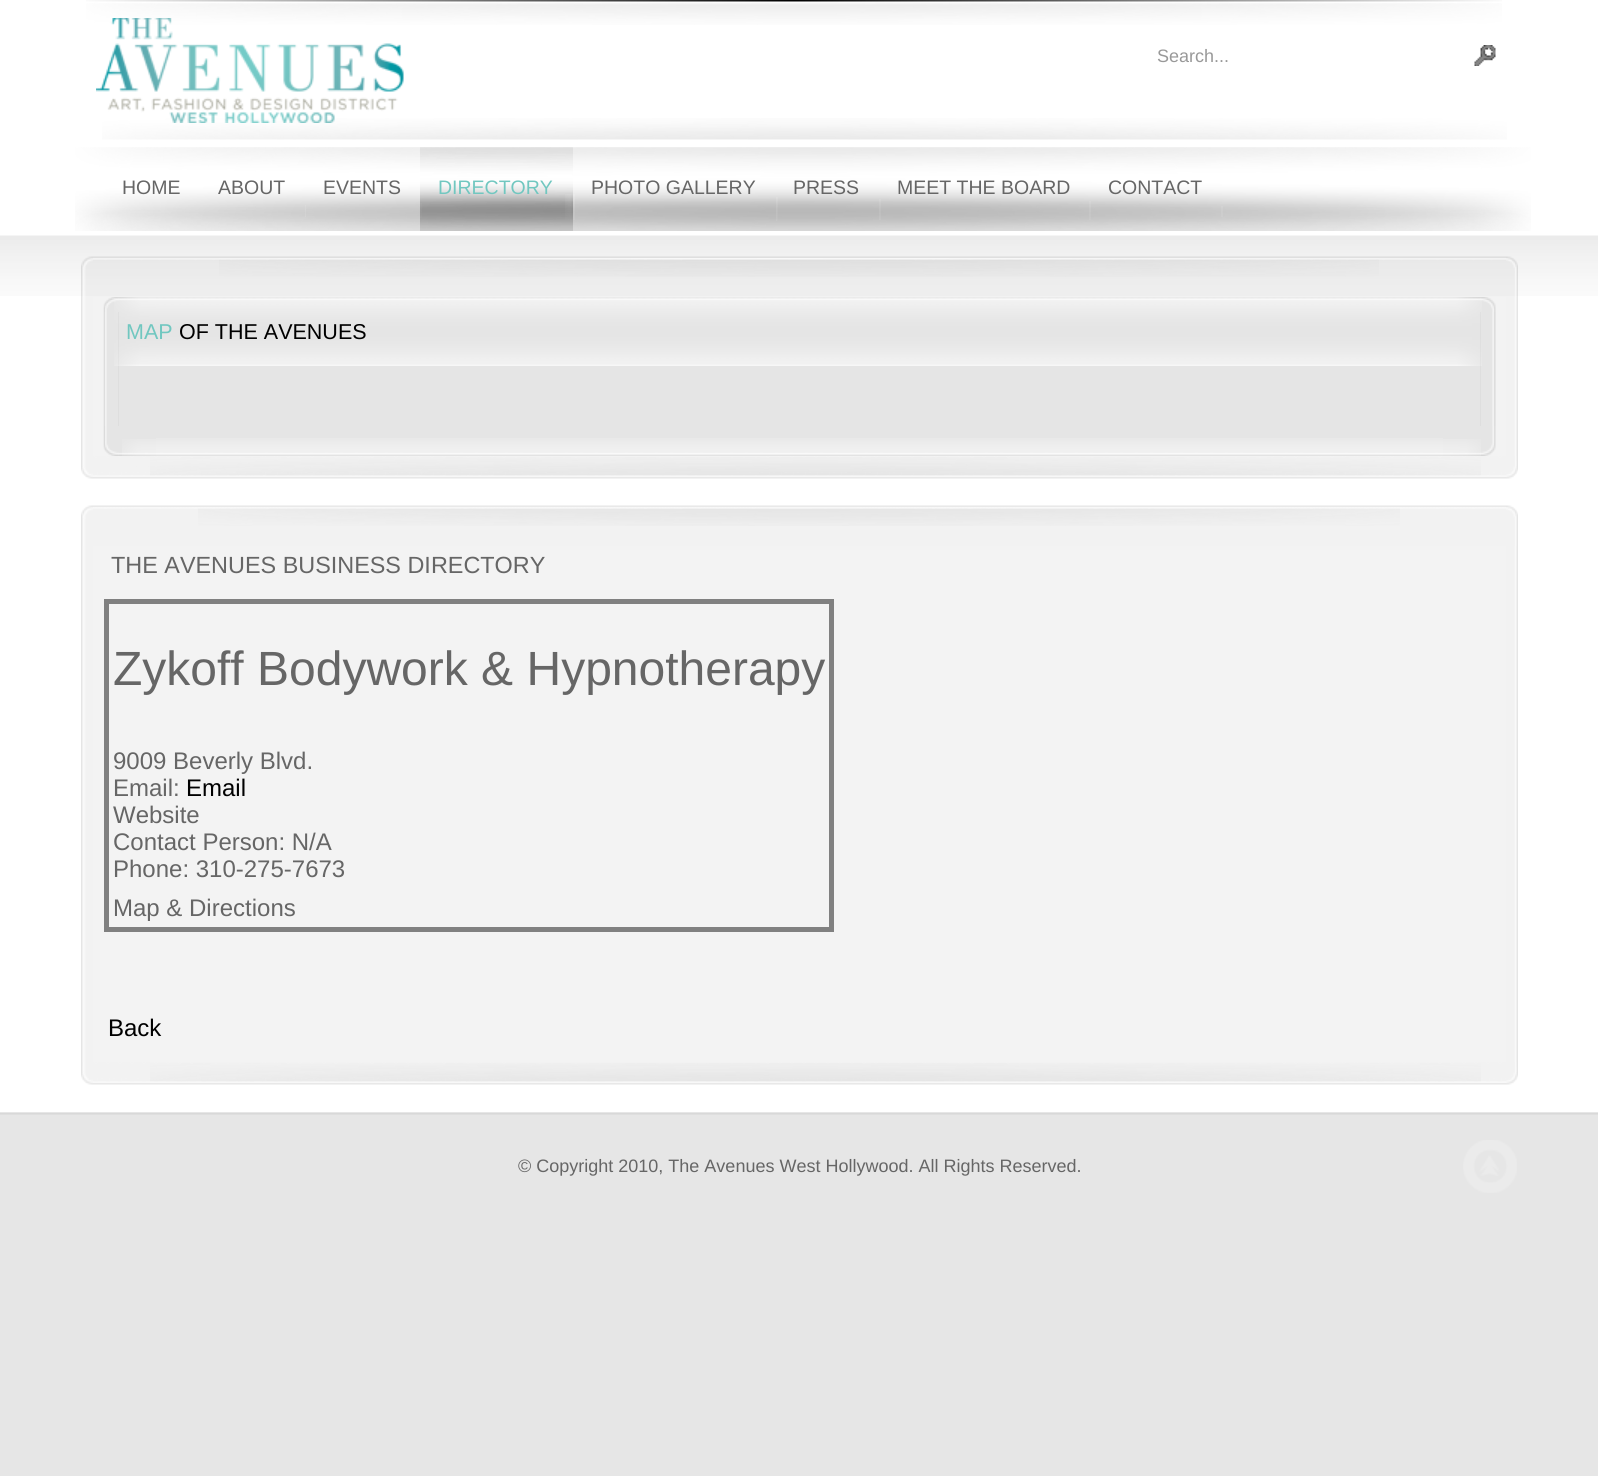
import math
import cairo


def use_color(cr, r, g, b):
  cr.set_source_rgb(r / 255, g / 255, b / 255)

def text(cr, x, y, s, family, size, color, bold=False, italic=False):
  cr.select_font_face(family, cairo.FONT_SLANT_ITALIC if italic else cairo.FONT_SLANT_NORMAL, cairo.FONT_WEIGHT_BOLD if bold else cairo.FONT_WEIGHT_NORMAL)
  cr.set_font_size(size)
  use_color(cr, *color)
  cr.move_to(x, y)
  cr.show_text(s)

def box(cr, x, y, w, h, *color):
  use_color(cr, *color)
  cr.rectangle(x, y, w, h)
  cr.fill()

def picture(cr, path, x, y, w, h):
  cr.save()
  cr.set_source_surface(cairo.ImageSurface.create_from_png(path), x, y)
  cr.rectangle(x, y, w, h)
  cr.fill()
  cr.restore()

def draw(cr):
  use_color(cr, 230, 230, 230)
  cr.paint()
  box(cr, 0, 0, 1598, 1112, 255, 255, 255)
  picture(cr, "img_01.png", 86, 0, 1416, 25)
  picture(cr, "img_02.png", 102, 118, 1405, 22)
  picture(cr, "img_03.png", 96, 18, 308, 105)
  picture(cr, "img_04.png", 1474, 45, 22, 21)
  picture(cr, "img_05.png", 75, 147, 1456, 84)
  cr.set_source_rgba(1, 1, 1, 0.1)
  cr.rectangle(305, 205, 1, 12)
  cr.fill()
  picture(cr, "img_06.png", 420, 203, 2, 15)
  picture(cr, "img_07.png", 420, 147, 153, 84)
  picture(cr, "img_08.png", 565, 194, 10, 26)
  picture(cr, "img_09.png", 776, 197, 2, 24)
  picture(cr, "img_10.png", 879, 199, 2, 21)
  picture(cr, "img_11.png", 1089, 201, 2, 19)
  picture(cr, "img_12.png", 1221, 206, 2, 11)
  picture(cr, "img_13.png", 0, 235, 1598, 61)
  picture(cr, "img_14.png", 93, 256, 1413, 41)
  picture(cr, "img_15.png", 219, 258, 1160, 19)
  picture(cr, "img_16.png", 1506, 256, 12, 41)
  picture(cr, "img_17.png", 81, 256, 12, 41)
  box(cr, 93, 297, 1413, 159, 243, 243, 243)
  picture(cr, "img_18.png", 1506, 297, 12, 159)
  picture(cr, "img_19.png", 81, 297, 12, 159)
  picture(cr, "img_20.png", 118, 297, 1363, 15)
  picture(cr, "img_21.png", 1480, 297, 16, 15)
  picture(cr, "img_22.png", 103, 297, 16, 15)
  box(cr, 118, 312, 1363, 114, 229, 229, 229)
  picture(cr, "img_23.png", 1480, 312, 16, 114)
  picture(cr, "img_24.png", 103, 312, 16, 114)
  picture(cr, "img_25.png", 156, 297, 1287, 69)
  picture(cr, "img_26.png", 114, 297, 42, 69)
  picture(cr, "img_27.png", 1443, 297, 39, 69)
  picture(cr, "img_28.png", 118, 426, 1363, 30)
  picture(cr, "img_29.png", 1480, 426, 16, 30)
  picture(cr, "img_30.png", 103, 426, 16, 30)
  picture(cr, "img_31.png", 156, 438, 1287, 18)
  picture(cr, "img_32.png", 122, 439, 34, 17)
  picture(cr, "img_33.png", 1443, 439, 38, 17)
  picture(cr, "img_34.png", 93, 456, 1413, 23)
  picture(cr, "img_35.png", 150, 457, 1331, 19)
  picture(cr, "img_36.png", 1506, 456, 12, 23)
  picture(cr, "img_37.png", 81, 456, 12, 23)
  picture(cr, "img_38.png", 93, 505, 1413, 41)
  picture(cr, "img_39.png", 198, 508, 1202, 18)
  picture(cr, "img_40.png", 1506, 505, 12, 41)
  picture(cr, "img_41.png", 81, 505, 12, 41)
  box(cr, 93, 546, 1413, 516, 243, 243, 243)
  picture(cr, "img_42.png", 1506, 546, 12, 516)
  picture(cr, "img_43.png", 81, 546, 12, 516)
  cr.rectangle(106.5, 601.5, 725, 328)
  use_color(cr, 128, 128, 128)
  cr.set_line_width(5)
  cr.stroke()
  picture(cr, "img_44.png", 93, 1062, 1413, 23)
  picture(cr, "img_45.png", 150, 1063, 1331, 19)
  picture(cr, "img_36.png", 1506, 1062, 12, 23)
  picture(cr, "img_37.png", 81, 1062, 12, 23)
  picture(cr, "img_46.png", 0, 1113, 1598, 2)
  picture(cr, "img_47.png", 1463, 1140, 54, 53)
  text(cr, 1157, 62, "Search...", "Liberation Sans", 18, (153, 153, 153))
  text(cr, 122, 194, "HOME", "Liberation Sans", 19.5, (102, 102, 102))
  text(cr, 218, 194, "ABOUT", "Liberation Sans", 19.5, (102, 102, 102))
  text(cr, 323, 194, "EVENTS", "Liberation Sans", 19.5, (102, 102, 102))
  text(cr, 438, 194, "DIRECTORY", "Liberation Sans", 19.5, (113, 199, 192))
  text(cr, 591, 194, "PHOTO GALLERY", "Liberation Sans", 19.5, (102, 102, 102))
  text(cr, 793, 194, "PRESS", "Liberation Sans", 19.5, (102, 102, 102))
  text(cr, 897, 194, "MEET THE BOARD", "Liberation Sans", 19.5, (102, 102, 102))
  text(cr, 1108, 194, "CONTACT", "Liberation Sans", 19.5, (102, 102, 102))
  text(cr, 126, 339, "MAP", "Liberation Sans", 21.5, (113, 199, 192))
  text(cr, 179, 339, "OF THE AVENUES", "Liberation Sans", 21.5, (0, 0, 0))
  text(cr, 111, 573, "THE AVENUES BUSINESS DIRECTORY", "Liberation Sans", 23.4, (102, 102, 102))
  text(cr, 113, 685, "Zykoff Bodywork & Hypnotherapy", "Liberation Sans", 48, (102, 102, 102))
  text(cr, 113, 769, "9009 Beverly Blvd.", "Liberation Sans", 24, (102, 102, 102))
  text(cr, 113, 796, "Email:", "Liberation Sans", 24, (102, 102, 102))
  text(cr, 186, 796, "Email", "Liberation Sans", 24, (0, 0, 0))
  text(cr, 113, 823, "Website", "Liberation Sans", 24, (102, 102, 102))
  text(cr, 113, 850, "Contact Person: N/A", "Liberation Sans", 24, (102, 102, 102))
  text(cr, 113, 877, "Phone: 310-275-7673", "Liberation Sans", 24, (102, 102, 102))
  text(cr, 113, 916, "Map & Directions", "Liberation Sans", 24, (102, 102, 102))
  text(cr, 108, 1036, "Back", "Liberation Sans", 24, (0, 0, 0))
  text(cr, 518, 1172, "© Copyright 2010, The Avenues West Hollywood. All Rights Reserved.", "Liberation Sans", 18, (102, 102, 102))


surface = cairo.ImageSurface(cairo.FORMAT_RGB24, 1598, 1476)
cr = cairo.Context(surface)
options = cairo.FontOptions()
options.set_hint_metrics(cairo.HINT_METRICS_OFF)
options.set_hint_style(cairo.HINT_STYLE_NONE)
cr.set_font_options(options)
cr.set_miter_limit(4)
draw(cr)
surface.write_to_png("out.png")
